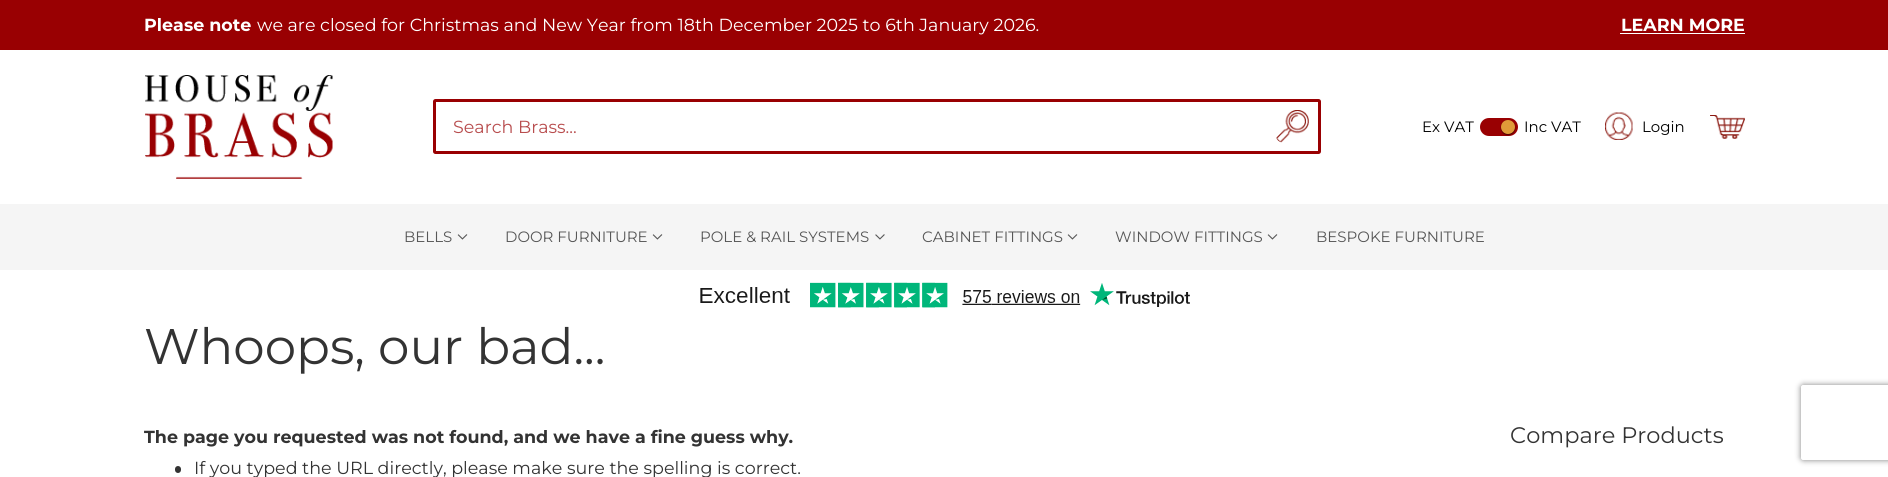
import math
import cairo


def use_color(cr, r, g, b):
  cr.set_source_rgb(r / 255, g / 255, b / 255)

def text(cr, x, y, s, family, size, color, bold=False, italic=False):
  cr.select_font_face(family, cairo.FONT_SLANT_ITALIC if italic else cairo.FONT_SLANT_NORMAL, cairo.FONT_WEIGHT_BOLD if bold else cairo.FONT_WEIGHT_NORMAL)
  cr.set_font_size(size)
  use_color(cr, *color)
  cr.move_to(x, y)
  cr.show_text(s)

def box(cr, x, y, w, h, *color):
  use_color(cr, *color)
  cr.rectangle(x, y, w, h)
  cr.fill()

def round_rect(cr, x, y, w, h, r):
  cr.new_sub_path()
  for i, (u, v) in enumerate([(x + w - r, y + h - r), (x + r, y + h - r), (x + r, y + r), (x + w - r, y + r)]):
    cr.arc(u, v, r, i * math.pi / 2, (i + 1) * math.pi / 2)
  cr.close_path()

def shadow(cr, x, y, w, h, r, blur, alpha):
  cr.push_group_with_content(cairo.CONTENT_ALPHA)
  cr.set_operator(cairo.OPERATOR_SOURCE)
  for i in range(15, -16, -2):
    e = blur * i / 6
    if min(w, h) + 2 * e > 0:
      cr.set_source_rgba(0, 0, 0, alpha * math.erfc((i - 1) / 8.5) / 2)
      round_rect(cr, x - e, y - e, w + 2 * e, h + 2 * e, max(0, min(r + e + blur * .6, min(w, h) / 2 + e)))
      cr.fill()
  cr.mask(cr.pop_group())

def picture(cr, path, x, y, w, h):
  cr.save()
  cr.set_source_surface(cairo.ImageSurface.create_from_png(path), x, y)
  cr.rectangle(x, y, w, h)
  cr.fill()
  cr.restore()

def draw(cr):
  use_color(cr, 255, 255, 255)
  cr.paint()
  box(cr, 0, 0, 1888, 50, 153, 0, 2)
  box(cr, 1620, 33, 125, 1, 255, 255, 255)
  picture(cr, "img_01.png", 145, 75, 188, 104)
  round_rect(cr, 434.5, 100.5, 885, 52, 1)
  use_color(cr, 153, 0, 2)
  cr.set_line_width(3)
  cr.stroke()
  picture(cr, "img_02.png", 1276, 110, 33, 33)
  round_rect(cr, 1480, 118, 38, 18, 9)
  cr.fill()
  use_color(cr, 0, 0, 0)
  shadow(cr, 1501, 121, 14, 14, 7, 0.5, 0.5)
  use_color(cr, 224, 155, 57)
  cr.arc(1508, 127, 7, 0, 2 * math.pi)
  cr.fill()
  picture(cr, "img_03.png", 1605, 112, 28, 28)
  picture(cr, "img_04.png", 1710, 115, 35, 24)
  box(cr, 0, 204, 1888, 66, 245, 245, 245)
  picture(cr, "img_05.png", 457, 234, 11, 6)
  picture(cr, "img_05.png", 652, 234, 11, 6)
  picture(cr, "img_06.png", 875, 234, 10, 6)
  picture(cr, "img_05.png", 1067, 234, 11, 6)
  picture(cr, "img_05.png", 1267, 234, 11, 6)
  picture(cr, "img_07.png", 700, 282, 490, 26)
  use_color(cr, 51, 51, 51)
  round_rect(cr, 175, 466, 6, 7, 3)
  cr.fill()
  cr.save()
  cr.set_fill_rule(cairo.FILL_RULE_EVEN_ODD)
  cr.new_path()
  cr.move_to(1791, 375)
  cr.line_to(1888, 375)
  cr.line_to(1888, 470)
  cr.line_to(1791, 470)
  cr.close_path()
  cr.move_to(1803.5, 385)
  cr.line_to(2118.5, 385)
  cr.curve_to(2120, 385, 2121, 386, 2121, 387.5)
  cr.line_to(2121, 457.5)
  cr.curve_to(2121, 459, 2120, 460, 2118.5, 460)
  cr.line_to(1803.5, 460)
  cr.curve_to(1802, 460, 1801, 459, 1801, 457.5)
  cr.line_to(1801, 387.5)
  cr.curve_to(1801, 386, 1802, 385, 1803.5, 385)
  cr.close_path()
  cr.clip()
  use_color(cr, 128, 128, 128)
  shadow(cr, 1801, 385, 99, 75, 2.5, 3, 1)
  cr.restore()
  text(cr, 144, 31, "Please note", "Montserrat", 17.5, (255, 255, 255), bold=True)
  text(cr, 257, 31, "we are closed for Christmas and New Year from 18th December 2025 to 6th January 2026.", "Montserrat", 17.5, (255, 255, 255))
  text(cr, 1621, 31, "LEARN MORE", "Montserrat", 17.5, (255, 255, 255), bold=True)
  text(cr, 453, 133, "Search Brass...", "Montserrat", 17.5, (184, 77, 78))
  text(cr, 1422, 132, "Ex VAT", "Montserrat", 15, (0, 0, 0))
  text(cr, 1524, 132, "Inc VAT", "Montserrat", 15, (0, 0, 0))
  text(cr, 1642, 132, "Login", "Montserrat", 15, (0, 0, 0))
  text(cr, 404, 242, "BELLS", "Montserrat", 15, (87, 87, 87))
  text(cr, 505, 242, "DOOR FURNITURE", "Montserrat", 15, (87, 87, 87))
  text(cr, 700, 242, "POLE & RAIL SYSTEMS", "Montserrat", 15, (87, 87, 87))
  text(cr, 922, 242, "CABINET FITTINGS", "Montserrat", 15, (87, 87, 87))
  text(cr, 1115, 242, "WINDOW FITTINGS", "Montserrat", 15, (87, 87, 87))
  text(cr, 1316, 242, "BESPOKE FURNITURE", "Montserrat", 15, (87, 87, 87))
  text(cr, 144, 364, "Whoops, our bad...", "Montserrat", 50, (51, 51, 51))
  text(cr, 144, 443, "The page you requested was not found, and we have a fine guess why.", "Montserrat", 17.5, (51, 51, 51), bold=True)
  text(cr, 194, 474, "If you typed the URL directly, please make sure the spelling is correct.", "Montserrat", 17.5, (51, 51, 51))
  text(cr, 1510, 443, "Compare Products", "Montserrat", 22.5, (51, 51, 51))


surface = cairo.ImageSurface(cairo.FORMAT_RGB24, 1888, 477)
cr = cairo.Context(surface)
options = cairo.FontOptions()
options.set_hint_metrics(cairo.HINT_METRICS_OFF)
options.set_hint_style(cairo.HINT_STYLE_NONE)
cr.set_font_options(options)
cr.set_miter_limit(4)
draw(cr)
surface.write_to_png("out.png")
